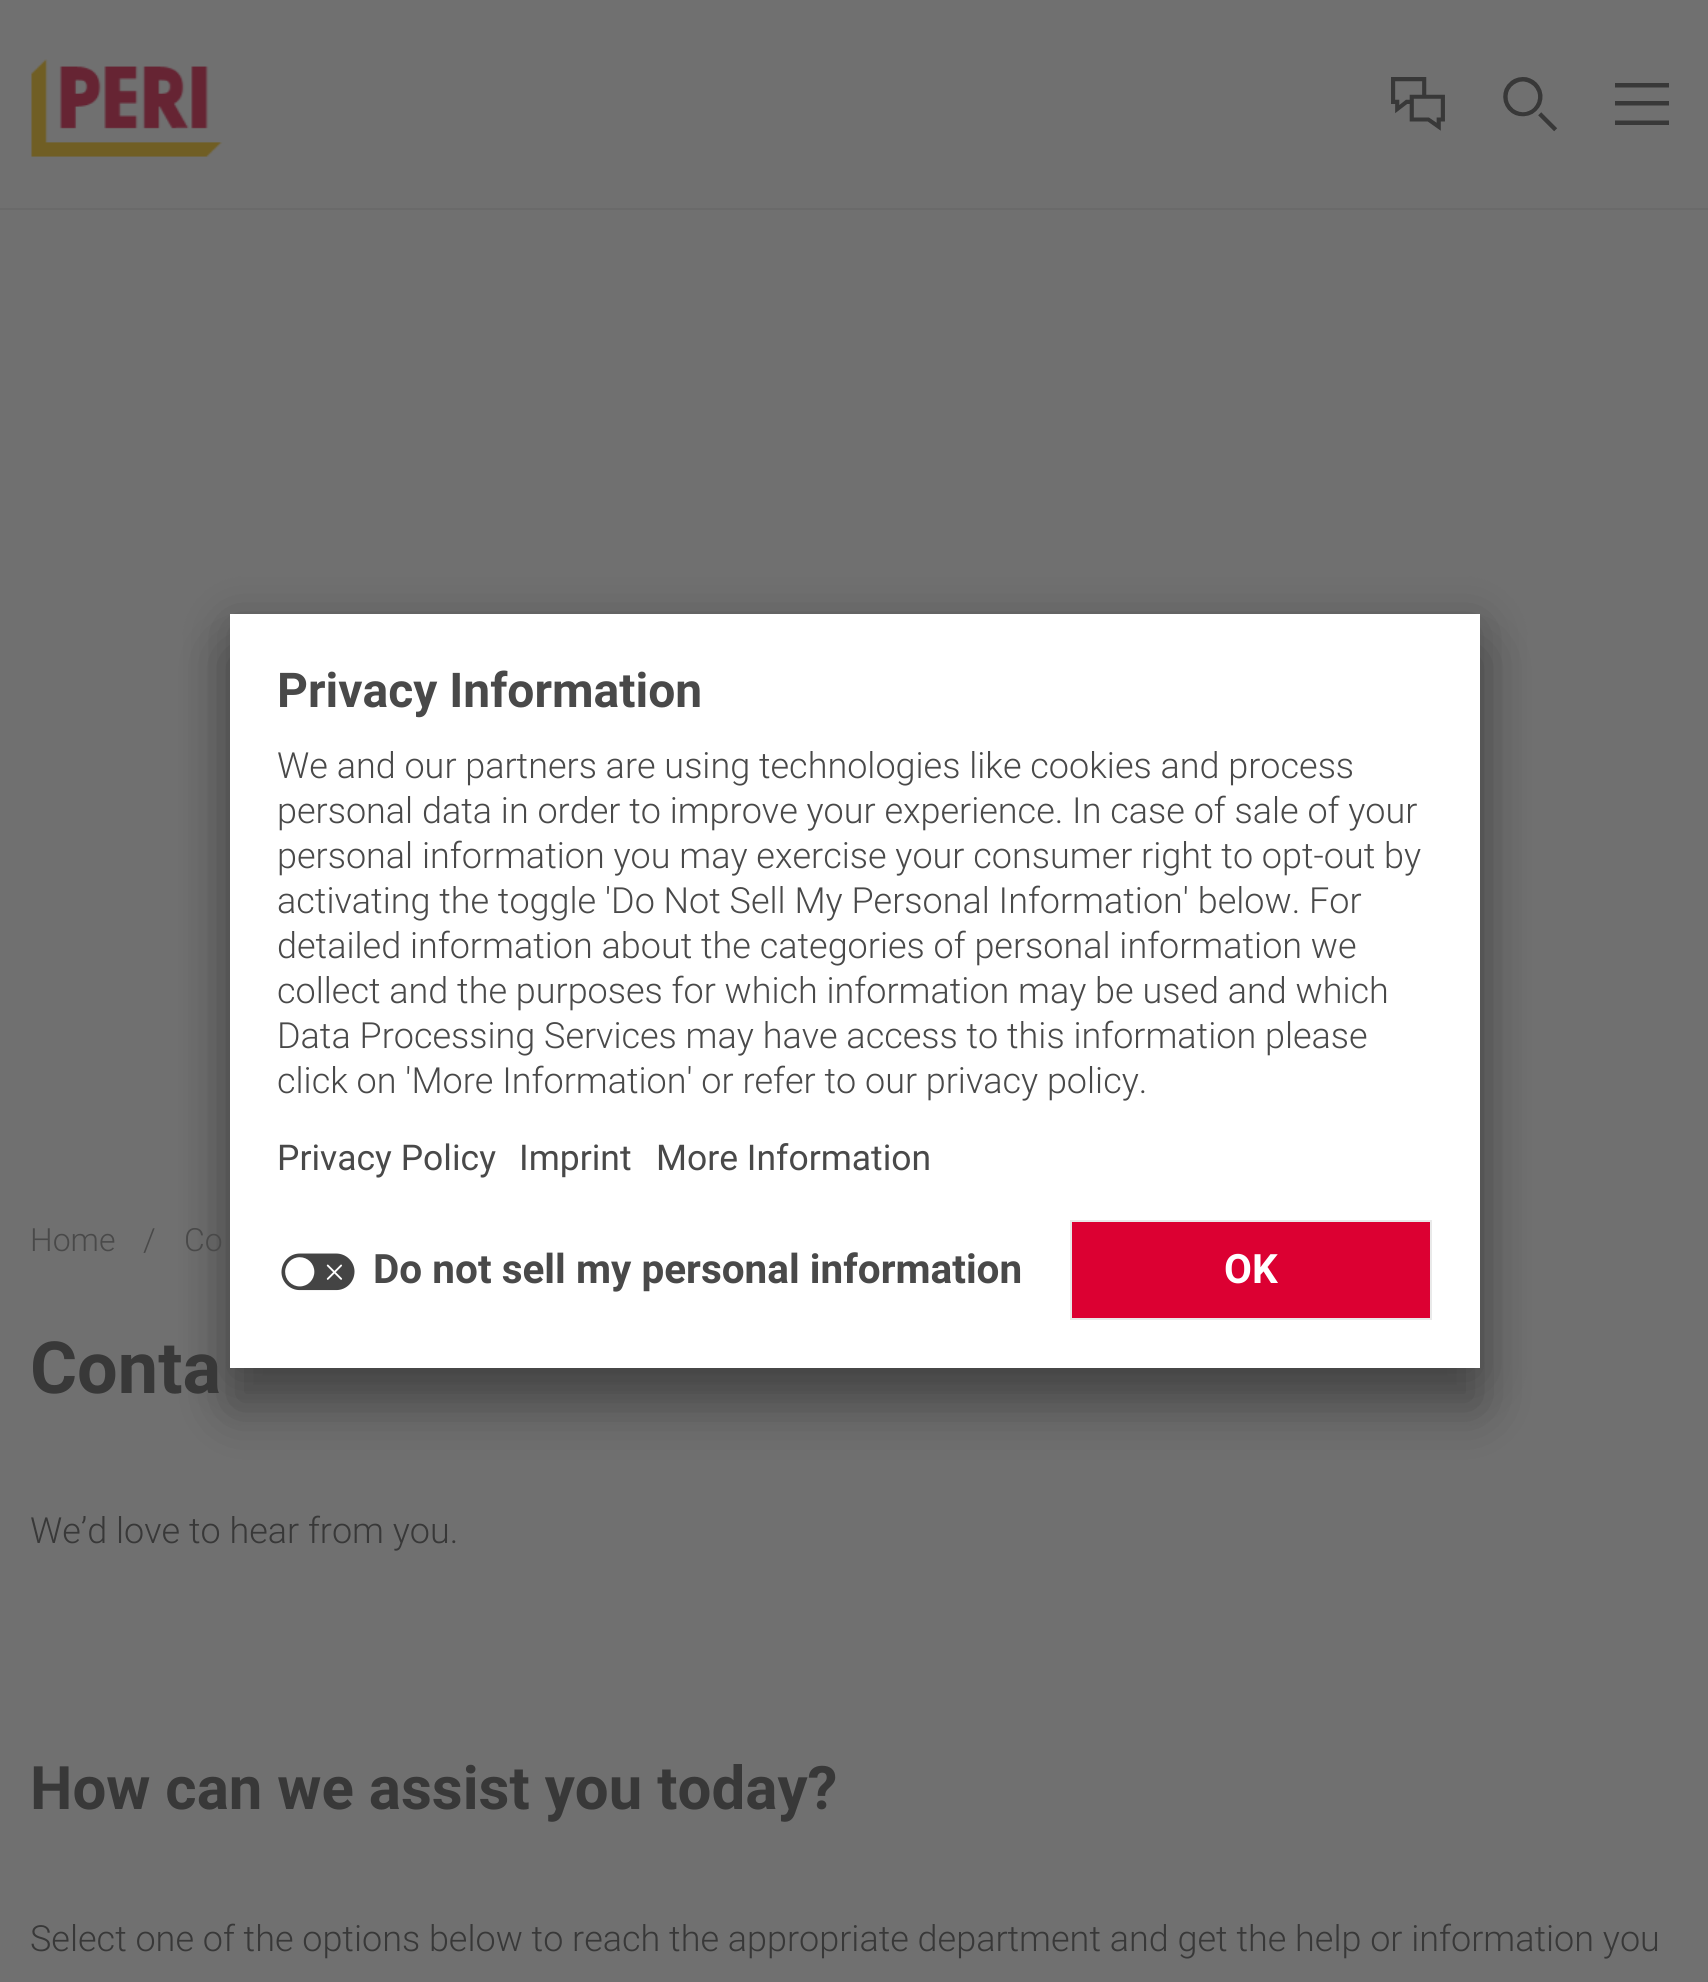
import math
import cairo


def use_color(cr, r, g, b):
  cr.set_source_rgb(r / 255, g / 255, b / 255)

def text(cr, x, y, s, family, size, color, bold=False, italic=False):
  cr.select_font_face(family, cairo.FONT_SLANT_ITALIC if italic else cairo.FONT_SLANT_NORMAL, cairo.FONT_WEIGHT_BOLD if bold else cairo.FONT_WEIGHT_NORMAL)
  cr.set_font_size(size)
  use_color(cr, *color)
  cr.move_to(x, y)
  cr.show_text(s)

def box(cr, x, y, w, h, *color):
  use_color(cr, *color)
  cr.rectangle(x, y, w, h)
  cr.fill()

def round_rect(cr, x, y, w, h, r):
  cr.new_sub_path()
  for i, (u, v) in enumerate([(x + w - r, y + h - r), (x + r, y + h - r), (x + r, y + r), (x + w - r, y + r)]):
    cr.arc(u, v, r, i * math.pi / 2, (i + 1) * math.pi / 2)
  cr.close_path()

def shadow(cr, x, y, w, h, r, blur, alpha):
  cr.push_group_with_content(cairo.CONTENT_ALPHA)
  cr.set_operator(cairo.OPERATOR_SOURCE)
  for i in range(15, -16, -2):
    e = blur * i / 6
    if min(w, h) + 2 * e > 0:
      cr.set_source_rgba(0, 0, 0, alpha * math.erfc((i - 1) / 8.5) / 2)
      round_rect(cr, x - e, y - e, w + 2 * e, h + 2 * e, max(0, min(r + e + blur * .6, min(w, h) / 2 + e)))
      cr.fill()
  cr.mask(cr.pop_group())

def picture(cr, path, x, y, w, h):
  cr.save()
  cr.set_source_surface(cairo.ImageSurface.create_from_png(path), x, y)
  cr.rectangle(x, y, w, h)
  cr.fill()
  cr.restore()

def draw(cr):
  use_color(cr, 112, 112, 112)
  cr.paint()
  use_color(cr, 0, 0, 0)
  shadow(cr, 230, 654, 1250, 754, 0, 28, 0.3)
  shadow(cr, 230, 624, 1250, 754, 0, 26, 0.22)
  box(cr, 230, 614, 1250, 754, 255, 255, 255)
  picture(cr, "img_01.png", 281, 1253, 74, 38)
  use_color(cr, 220, 0, 50)
  cr.rectangle(1071, 1221, 360, 98)
  cr.fill_preserve()
  use_color(cr, 233, 233, 233)
  cr.stroke()
  box(cr, 0, 208, 1708, 2, 106, 106, 106)
  picture(cr, "img_02.png", 31, 59, 192, 98)
  picture(cr, "img_03.png", 1391, 77, 54, 54)
  picture(cr, "img_04.png", 1503, 77, 55, 55)
  picture(cr, "img_05.png", 1615, 83, 54, 42)
  text(cr, 277, 707, "Privacy Information", "Roboto", 48, (73, 73, 73), bold=True)
  text(cr, 277, 778, "We and our partners are using technologies like cookies and process", "Roboto Light", 36, (73, 73, 73))
  text(cr, 277, 823, "personal data in order to improve your experience. In case of sale of your", "Roboto Light", 36, (73, 73, 73))
  text(cr, 277, 868, "personal information you may exercise your consumer right to opt-out by", "Roboto Light", 36, (73, 73, 73))
  text(cr, 277, 913, "activating the toggle 'Do Not Sell My Personal Information' below. For", "Roboto Light", 36, (73, 73, 73))
  text(cr, 277, 958, "detailed information about the categories of personal information we", "Roboto Light", 36, (73, 73, 73))
  text(cr, 277, 1003, "collect and the purposes for which information may be used and which", "Roboto Light", 36, (73, 73, 73))
  text(cr, 277, 1048, "Data Processing Services may have access to this information please", "Roboto Light", 36, (73, 73, 73))
  text(cr, 277, 1093, "click on 'More Information' or refer to our privacy policy.", "Roboto Light", 36, (73, 73, 73))
  text(cr, 277, 1170, "Privacy Policy", "Roboto", 35.5, (73, 73, 73))
  text(cr, 519, 1170, "Imprint", "Roboto", 35.5, (73, 73, 73))
  text(cr, 656, 1170, "More Information", "Roboto", 35.5, (73, 73, 73))
  text(cr, 373, 1283, "Do not sell my personal information", "Roboto", 40.5, (73, 73, 73), bold=True)
  text(cr, 1224, 1283, "OK", "Roboto", 40.5, (255, 255, 255), bold=True)
  text(cr, 30, 1251, "Home", "Roboto Light", 32, (73, 73, 73))
  text(cr, 143, 1251, "/", "Roboto Light", 32, (73, 73, 73))
  text(cr, 184, 1251, "Co", "Roboto Light", 32, (73, 73, 73))
  text(cr, 30, 1393, "Conta", "Roboto", 72, (56, 56, 56), bold=True)
  text(cr, 30, 1543, "We’d love to hear from you.", "Roboto Light", 36, (56, 56, 56))
  text(cr, 30, 1809, "How can we assist you today?", "Roboto", 60, (56, 56, 56), bold=True)
  text(cr, 30, 1951, "Select one of the options below to reach the appropriate department and get the help or information you", "Roboto Light", 36, (56, 56, 56))


surface = cairo.ImageSurface(cairo.FORMAT_RGB24, 1708, 1982)
cr = cairo.Context(surface)
options = cairo.FontOptions()
options.set_hint_metrics(cairo.HINT_METRICS_OFF)
options.set_hint_style(cairo.HINT_STYLE_NONE)
cr.set_font_options(options)
cr.set_miter_limit(4)
draw(cr)
surface.write_to_png("out.png")
